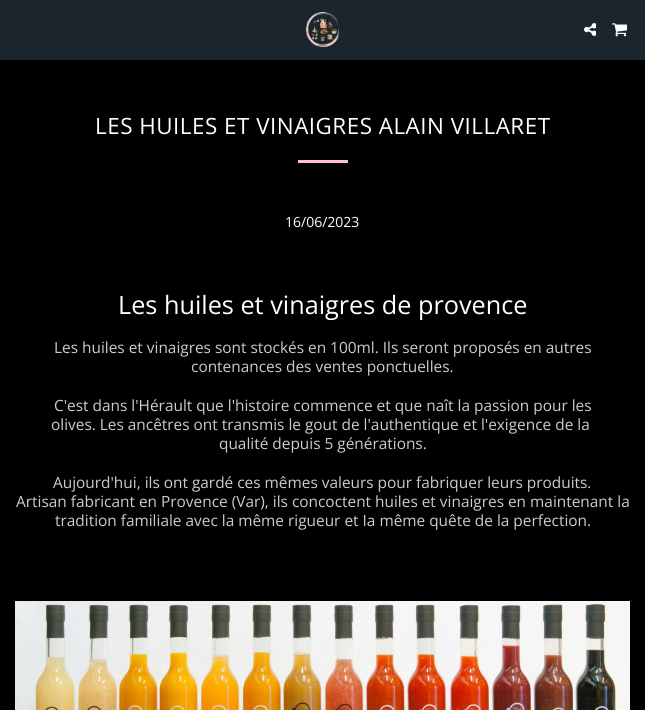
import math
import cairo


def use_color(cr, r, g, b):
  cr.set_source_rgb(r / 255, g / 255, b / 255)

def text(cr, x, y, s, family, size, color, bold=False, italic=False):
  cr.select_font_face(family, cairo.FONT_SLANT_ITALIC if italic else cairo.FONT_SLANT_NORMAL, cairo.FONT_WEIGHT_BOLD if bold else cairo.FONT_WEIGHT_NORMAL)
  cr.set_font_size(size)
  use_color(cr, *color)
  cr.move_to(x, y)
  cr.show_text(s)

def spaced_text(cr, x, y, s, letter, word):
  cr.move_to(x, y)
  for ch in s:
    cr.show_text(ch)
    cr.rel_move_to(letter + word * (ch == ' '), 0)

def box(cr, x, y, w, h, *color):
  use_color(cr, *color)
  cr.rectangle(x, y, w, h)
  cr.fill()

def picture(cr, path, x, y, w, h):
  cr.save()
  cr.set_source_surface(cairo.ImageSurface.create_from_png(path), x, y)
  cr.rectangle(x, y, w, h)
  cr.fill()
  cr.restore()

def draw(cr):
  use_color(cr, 27, 38, 44)
  cr.paint()
  picture(cr, "img_01.png", 305, 12, 34, 35)
  picture(cr, "img_02.png", 584, 23, 12, 13)
  picture(cr, "img_03.png", 612, 23, 15, 14)
  box(cr, 0, 60, 645, 650, 0, 0, 0)
  box(cr, 298, 160, 50, 3, 255, 192, 203)
  picture(cr, "img_04.png", 15, 601, 615, 109)
  cr.select_font_face("Open Sans")
  cr.set_font_size(22.4)
  use_color(cr, 255, 255, 255)
  spaced_text(cr, 95, 134, "LES HUILES ET VINAIGRES ALAIN VILLARET", 0.5, 0)
  text(cr, 285, 227, "16/06/2023", "Open Sans", 14, (255, 255, 255))
  text(cr, 118, 314, "Les huiles et vinaigres de provence", "Open Sans", 25.25, (255, 255, 255))
  text(cr, 54, 353, "Les huiles et vinaigres sont stockés en 100ml. Ils seront proposés en autres", "Open Sans", 15.4, (204, 204, 204))
  text(cr, 191, 372, "contenances des ventes ponctuelles.", "Open Sans", 15.4, (204, 204, 204))
  text(cr, 54, 411, "C'est dans l'Hérault que l'histoire commence et que naît la passion pour les", "Open Sans", 15.4, (204, 204, 204))
  text(cr, 51, 430, "olives. Les ancêtres ont transmis le gout de l'authentique et l'exigence de la", "Open Sans", 15.4, (204, 204, 204))
  text(cr, 219, 449, "qualité depuis 5 générations.", "Open Sans", 15.4, (204, 204, 204))
  text(cr, 53, 488, "Aujourd'hui, ils ont gardé ces mêmes valeurs pour fabriquer leurs produits.", "Open Sans", 15.4, (204, 204, 204))
  text(cr, 16, 507, "Artisan fabricant en Provence (Var), ils concoctent huiles et vinaigres en maintenant la", "Open Sans", 15.4, (204, 204, 204))
  text(cr, 55, 526, "tradition familiale avec la même rigueur et Ia même quête de la perfection.", "Open Sans", 15.4, (204, 204, 204))


surface = cairo.ImageSurface(cairo.FORMAT_RGB24, 645, 710)
cr = cairo.Context(surface)
options = cairo.FontOptions()
options.set_hint_metrics(cairo.HINT_METRICS_OFF)
options.set_hint_style(cairo.HINT_STYLE_NONE)
cr.set_font_options(options)
cr.set_miter_limit(4)
draw(cr)
surface.write_to_png("out.png")
